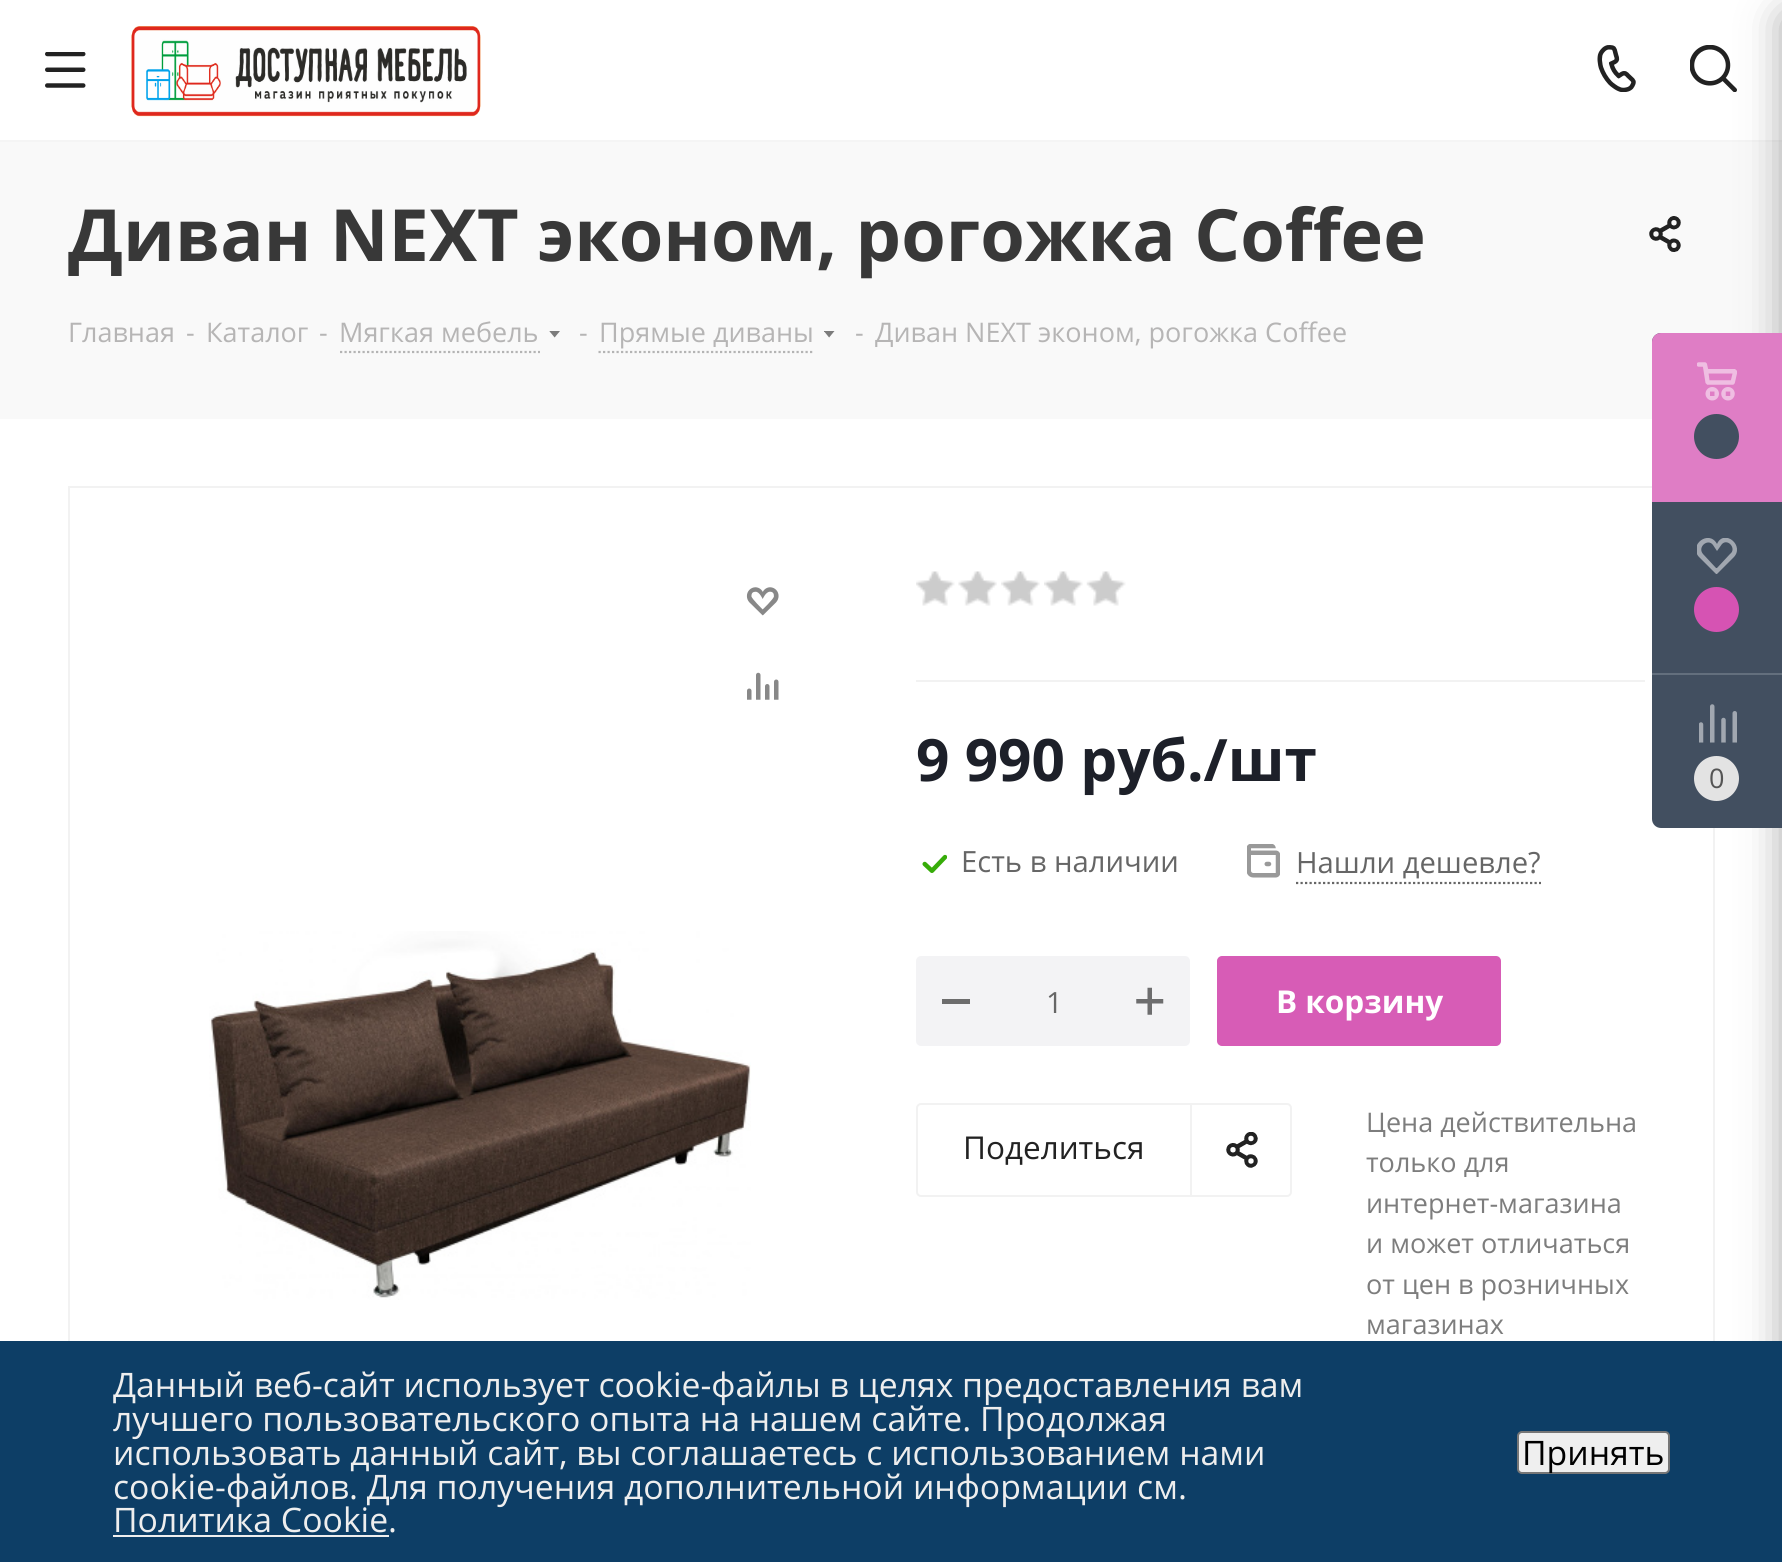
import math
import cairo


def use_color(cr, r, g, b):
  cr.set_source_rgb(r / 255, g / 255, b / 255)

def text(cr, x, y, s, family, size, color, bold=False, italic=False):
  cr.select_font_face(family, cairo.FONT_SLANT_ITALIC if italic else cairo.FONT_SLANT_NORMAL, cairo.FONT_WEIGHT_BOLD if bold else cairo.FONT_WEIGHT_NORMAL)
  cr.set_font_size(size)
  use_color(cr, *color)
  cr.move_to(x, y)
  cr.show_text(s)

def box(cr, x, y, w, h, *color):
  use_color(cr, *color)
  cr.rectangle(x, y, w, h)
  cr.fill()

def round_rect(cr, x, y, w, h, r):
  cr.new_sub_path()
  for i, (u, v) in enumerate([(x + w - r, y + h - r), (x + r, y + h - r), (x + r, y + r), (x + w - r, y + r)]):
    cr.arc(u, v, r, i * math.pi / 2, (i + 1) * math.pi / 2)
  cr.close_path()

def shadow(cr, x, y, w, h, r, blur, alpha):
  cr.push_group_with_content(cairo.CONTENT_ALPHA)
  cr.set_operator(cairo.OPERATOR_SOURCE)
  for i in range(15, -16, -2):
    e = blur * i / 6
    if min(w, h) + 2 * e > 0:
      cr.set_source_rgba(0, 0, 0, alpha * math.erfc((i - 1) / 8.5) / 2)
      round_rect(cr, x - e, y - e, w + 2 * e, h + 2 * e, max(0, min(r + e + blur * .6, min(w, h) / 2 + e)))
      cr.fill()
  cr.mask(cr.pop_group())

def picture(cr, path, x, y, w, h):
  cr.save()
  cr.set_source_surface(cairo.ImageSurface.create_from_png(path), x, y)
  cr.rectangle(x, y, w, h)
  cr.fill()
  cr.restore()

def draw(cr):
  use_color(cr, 255, 255, 255)
  cr.paint()
  box(cr, 0, 140, 1782, 2, 245, 245, 245)
  picture(cr, "img_01.png", 45, 52, 41, 36)
  picture(cr, "img_02.png", 131, 26, 350, 91)
  picture(cr, "img_03.png", 1597, 45, 39, 47)
  picture(cr, "img_04.png", 1690, 45, 47, 47)
  box(cr, 0, 142, 1782, 277, 249, 249, 249)
  picture(cr, "img_05.png", 1649, 216, 32, 36)
  cr.new_path()
  cr.move_to(340, 352)
  cr.line_to(540, 352)
  use_color(cr, 180, 180, 180)
  cr.set_line_width(2.2)
  cr.set_dash([2.25, 2.25])
  cr.stroke()
  picture(cr, "img_06.png", 549, 331, 11, 7)
  cr.new_path()
  cr.move_to(598.5, 352)
  cr.line_to(814.5, 352)
  cr.stroke()
  picture(cr, "img_07.png", 824, 331, 11, 7)
  cr.rectangle(69, 487, 1645, 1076)
  use_color(cr, 242, 242, 242)
  cr.set_line_width(2)
  cr.set_dash([])
  cr.stroke()
  picture(cr, "img_08.png", 746, 587, 33, 29)
  picture(cr, "img_09.png", 747, 672, 32, 28)
  picture(cr, "img_10.png", 209, 931, 542, 369)
  box(cr, 916, 680, 729, 2, 242, 242, 242)
  picture(cr, "img_11.png", 916, 571, 39, 35)
  picture(cr, "img_12.png", 958, 571, 39, 35)
  picture(cr, "img_13.png", 1001, 571, 39, 35)
  picture(cr, "img_14.png", 1044, 571, 39, 35)
  picture(cr, "img_15.png", 1086, 571, 40, 35)
  picture(cr, "img_16.png", 922, 854, 25, 19)
  picture(cr, "img_17.png", 1247, 844, 33, 34)
  cr.new_path()
  cr.move_to(1296, 883)
  cr.line_to(1541, 883)
  use_color(cr, 102, 102, 102)
  cr.set_line_width(2.2)
  cr.set_dash([2.25, 2.25])
  cr.stroke()
  use_color(cr, 243, 243, 245)
  round_rect(cr, 917, 957, 272, 88, 4)
  cr.fill_preserve()
  cr.set_line_width(2)
  cr.set_dash([])
  cr.stroke()
  box(cr, 942, 999, 28, 5, 109, 109, 109)
  picture(cr, "img_18.png", 1136, 987, 28, 28)
  use_color(cr, 215, 92, 182)
  round_rect(cr, 1218, 957, 282, 88, 4)
  cr.fill_preserve()
  cr.stroke()
  box(cr, 1190, 1103, 2, 94, 242, 242, 242)
  picture(cr, "img_19.png", 1226, 1132, 32, 36)
  round_rect(cr, 917, 1104, 374, 92, 4)
  cr.stroke()
  use_color(cr, 44, 44, 44)
  shadow(cr, 1782, 14, 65, 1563, 5, 20, 0.4)
  use_color(cr, 66, 79, 96)
  cr.new_path()
  cr.move_to(1661, 333)
  cr.line_to(1782, 333)
  cr.line_to(1782, 828)
  cr.line_to(1661, 828)
  cr.curve_to(1656, 828, 1652, 824, 1652, 819)
  cr.line_to(1652, 342)
  cr.curve_to(1652, 337, 1656, 333, 1661, 333)
  cr.close_path()
  cr.fill()
  use_color(cr, 223, 125, 197)
  cr.new_path()
  cr.move_to(1661, 333)
  cr.line_to(1782, 333)
  cr.line_to(1782, 502)
  cr.line_to(1652, 502)
  cr.line_to(1652, 342)
  cr.curve_to(1652, 337, 1656, 333, 1661, 333)
  cr.close_path()
  cr.fill()
  picture(cr, "img_20.png", 1697, 362, 40, 39)
  use_color(cr, 66, 79, 96)
  cr.arc(1716.5, 436.5, 22.5, 0, 2 * math.pi)
  cr.fill()
  cr.save()
  cr.rectangle(1697, 538, 40, 36)
  cr.clip()
  use_color(cr, 161, 167, 176)
  cr.set_fill_rule(cairo.FILL_RULE_EVEN_ODD)
  cr.new_path()
  cr.move_to(1733, 558)
  cr.line_to(1717, 574)
  cr.line_to(1716, 574)
  cr.line_to(1699, 557)
  cr.curve_to(1688, 545, 1709, 529, 1717, 544)
  cr.curve_to(1724, 528, 1746, 546, 1733, 558)
  cr.close_path()
  cr.move_to(1730, 554)
  cr.line_to(1717, 568)
  cr.line_to(1716, 568)
  cr.line_to(1703, 554)
  cr.curve_to(1697, 547, 1708, 538, 1713, 545)
  cr.line_to(1717, 551)
  cr.line_to(1722, 544)
  cr.curve_to(1728, 538, 1737, 549, 1730, 554)
  cr.close_path()
  cr.fill()
  cr.restore()
  use_color(cr, 214, 83, 179)
  cr.arc(1716.5, 609.5, 22.5, 0, 2 * math.pi)
  cr.fill()
  box(cr, 1652, 673, 130, 2, 99, 111, 125)
  picture(cr, "img_21.png", 1699, 704, 38, 39)
  use_color(cr, 227, 227, 227)
  cr.arc(1716.5, 778.5, 22.5, 0, 2 * math.pi)
  cr.fill()
  box(cr, 0, 1341, 1782, 221, 13, 62, 102)
  box(cr, 113, 1535, 276, 2, 238, 238, 238)
  use_color(cr, 239, 239, 239)
  round_rect(cr, 1518, 1432, 151, 41, 4)
  cr.fill_preserve()
  use_color(cr, 118, 118, 118)
  cr.stroke()
  text(cr, 68, 261, "Диван NEXT эконом, рогожка Coffee", "Open Sans", 72, (56, 56, 56), bold=True)
  text(cr, 68, 342, "Главная", "Open Sans", 27, (182, 181, 181))
  text(cr, 186, 342, "-", "Open Sans", 27, (182, 181, 181))
  text(cr, 206, 342, "Каталог", "Open Sans", 27, (182, 181, 181))
  text(cr, 319, 342, "-", "Open Sans", 27, (182, 181, 181))
  text(cr, 339, 342, "Мягкая мебель", "Open Sans", 27, (182, 181, 181))
  text(cr, 579, 342, "-", "Open Sans", 27, (182, 181, 181))
  text(cr, 599, 342, "Прямые диваны", "Open Sans", 27, (182, 181, 181))
  text(cr, 855, 342, "-", "Open Sans", 27, (182, 181, 181))
  text(cr, 875, 342, "Диван NEXT эконом, рогожка Coffee", "Open Sans", 27, (182, 181, 181))
  text(cr, 916, 781, "9 990 руб./шт", "Open Sans", 58.5, (29, 32, 41), bold=True)
  text(cr, 961, 872, "Есть в наличии", "Open Sans", 29.25, (102, 102, 102))
  text(cr, 1296, 873, "Нашли дешевле?", "Open Sans", 29.25, (102, 102, 102))
  text(cr, 1046, 1013, "1", "Open Sans", 29.25, (102, 102, 102))
  text(cr, 1276, 1013, "В корзину", "Open Sans", 31.5, (255, 255, 255), bold=True)
  text(cr, 963, 1159, "Поделиться", "Open Sans", 31.5, (34, 34, 34))
  text(cr, 1366, 1132, "Цена действительна", "Open Sans", 27, (125, 125, 125))
  text(cr, 1366, 1172, "только для", "Open Sans", 27, (125, 125, 125))
  text(cr, 1366, 1213, "интернет-магазина", "Open Sans", 27, (125, 125, 125))
  text(cr, 1366, 1253, "и может отличаться", "Open Sans", 27, (125, 125, 125))
  text(cr, 1366, 1294, "от цен в розничных", "Open Sans", 27, (125, 125, 125))
  text(cr, 1366, 1334, "магазинах", "Open Sans", 27, (125, 125, 125))
  text(cr, 1709, 788, "0", "Open Sans", 27, (85, 85, 85))
  text(cr, 113, 1397, "Данный веб-сайт использует cookie-файлы в целях предоставления вам", "Open Sans", 33.75, (238, 238, 238))
  text(cr, 113, 1431, "лучшего пользовательского опыта на нашем сайте. Продолжая", "Open Sans", 33.75, (238, 238, 238))
  text(cr, 113, 1465, "использовать данный сайт, вы соглашаетесь с использованием нами", "Open Sans", 33.75, (238, 238, 238))
  text(cr, 113, 1499, "cookie-файлов. Для получения дополнительной информации см.", "Open Sans", 33.75, (238, 238, 238))
  text(cr, 113, 1532, "Политика Cookie.", "Open Sans", 33.75, (238, 238, 238))
  text(cr, 1522, 1465, "Принять", "Open Sans", 33.75, (0, 0, 0))


surface = cairo.ImageSurface(cairo.FORMAT_RGB24, 1782, 1562)
cr = cairo.Context(surface)
options = cairo.FontOptions()
options.set_hint_metrics(cairo.HINT_METRICS_OFF)
options.set_hint_style(cairo.HINT_STYLE_NONE)
cr.set_font_options(options)
cr.set_miter_limit(4)
draw(cr)
surface.write_to_png("out.png")
